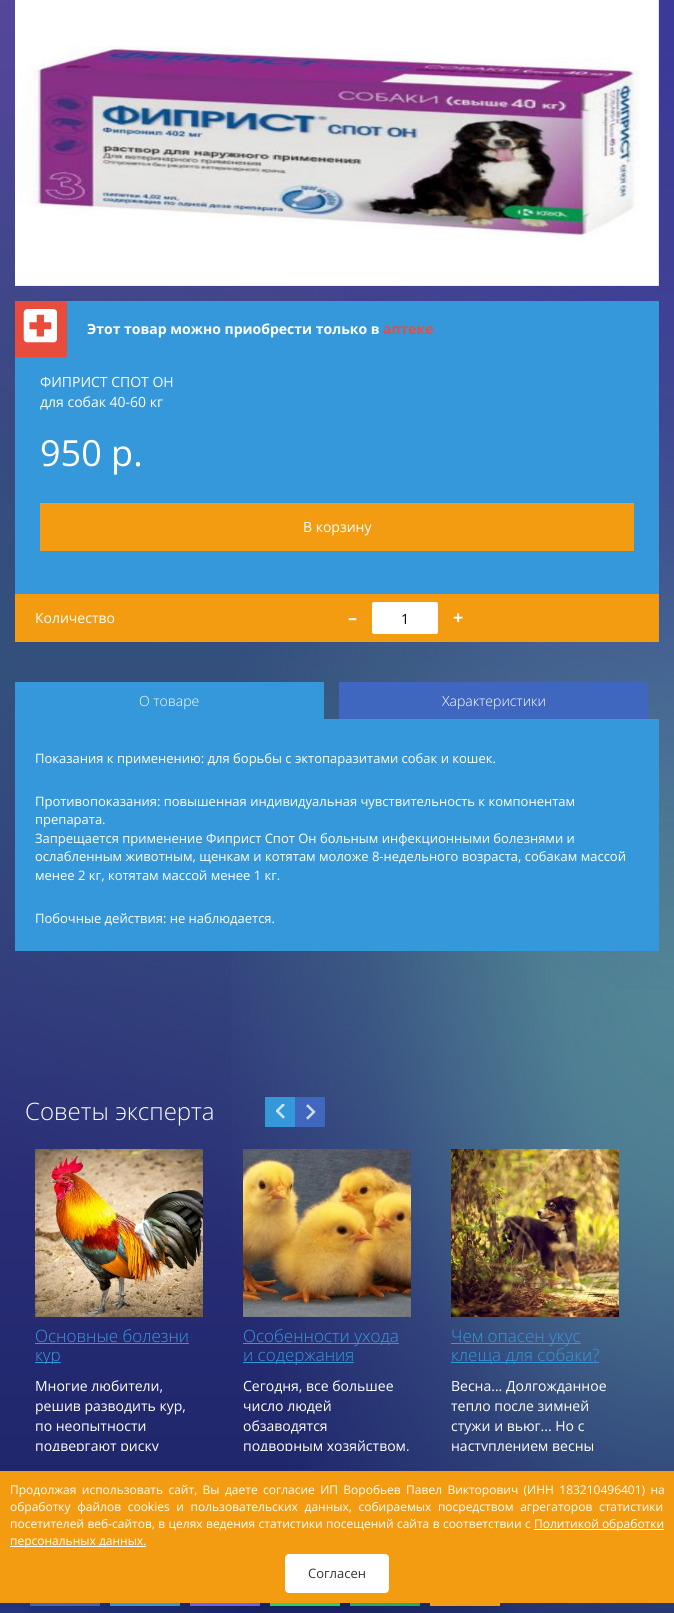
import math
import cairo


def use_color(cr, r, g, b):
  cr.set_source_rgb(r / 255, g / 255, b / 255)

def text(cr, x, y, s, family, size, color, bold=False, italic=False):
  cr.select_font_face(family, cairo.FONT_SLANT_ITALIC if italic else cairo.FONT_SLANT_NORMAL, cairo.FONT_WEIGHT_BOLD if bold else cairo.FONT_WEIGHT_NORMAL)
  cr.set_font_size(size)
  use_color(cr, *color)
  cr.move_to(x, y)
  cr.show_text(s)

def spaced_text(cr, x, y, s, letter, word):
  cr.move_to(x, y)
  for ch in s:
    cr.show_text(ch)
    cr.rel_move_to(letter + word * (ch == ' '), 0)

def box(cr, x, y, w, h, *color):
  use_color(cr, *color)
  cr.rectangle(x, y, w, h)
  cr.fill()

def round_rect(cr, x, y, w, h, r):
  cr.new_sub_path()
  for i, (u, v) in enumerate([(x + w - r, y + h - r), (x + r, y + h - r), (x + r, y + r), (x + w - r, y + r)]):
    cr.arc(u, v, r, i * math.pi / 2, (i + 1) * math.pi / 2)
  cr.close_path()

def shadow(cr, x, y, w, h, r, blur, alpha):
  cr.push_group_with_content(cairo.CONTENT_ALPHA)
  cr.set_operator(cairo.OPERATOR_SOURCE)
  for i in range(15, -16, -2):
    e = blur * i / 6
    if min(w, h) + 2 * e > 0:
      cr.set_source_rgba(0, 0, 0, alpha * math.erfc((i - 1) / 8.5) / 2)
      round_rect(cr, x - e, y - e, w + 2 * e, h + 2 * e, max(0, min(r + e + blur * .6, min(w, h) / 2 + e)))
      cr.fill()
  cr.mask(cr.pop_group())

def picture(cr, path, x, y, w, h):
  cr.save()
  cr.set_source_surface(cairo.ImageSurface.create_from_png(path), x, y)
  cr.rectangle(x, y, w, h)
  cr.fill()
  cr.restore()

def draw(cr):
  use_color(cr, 255, 255, 255)
  cr.paint()
  gradient = cairo.LinearGradient(337, -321, 337, 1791)
  gradient.add_color_stop_rgba(0, 0.373, 0.306, 0.651, 1)
  gradient.add_color_stop_rgba(1, 0.078, 0.125, 0.384, 1)
  cr.set_source(gradient)
  cr.rectangle(0, 0, 674, 1613)
  cr.fill()
  gradient = cairo.LinearGradient(-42, 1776, 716, -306)
  gradient.add_color_stop_rgba(0, 0.2, 0.314, 0.49, 0)
  gradient.add_color_stop_rgba(0.26, 0.2, 0.314, 0.49, 0)
  gradient.add_color_stop_rgba(0.47, 0.2, 0.314, 0.49, 1)
  gradient.add_color_stop_rgba(0.51, 0.2, 0.314, 0.49, 1)
  gradient.add_color_stop_rgba(0.73, 0.2, 0.314, 0.49, 0)
  gradient.add_color_stop_rgba(1, 0.2, 0.314, 0.49, 0)
  cr.set_source(gradient)
  cr.rectangle(0, 114, 674, 1282)
  cr.fill()
  gradient = cairo.RadialGradient(0, 0, 0, 0, 0, 1)
  gradient.set_matrix(cairo.Matrix(1 / 953, 0, 0, 1 / 1822, -1 * 674 / 953, -1 * 967 / 1822))
  gradient.add_color_stop_rgba(0.01, 0.337, 0.553, 0.6, 0.9)
  gradient.add_color_stop_rgba(0.12, 0.337, 0.553, 0.6, 0.8)
  gradient.add_color_stop_rgba(0.32, 0.337, 0.553, 0.6, 0.25)
  gradient.add_color_stop_rgba(0.48, 0.337, 0.553, 0.6, 0.01)
  gradient.add_color_stop_rgba(0.49, 0.337, 0.553, 0.6, 0)
  cr.set_source(gradient)
  cr.rectangle(231, 120, 443, 1493)
  cr.fill()
  gradient = cairo.RadialGradient(0, 1791, 0, 0, 1791, 2217)
  gradient.add_color_stop_rgba(0.02, 0.169, 0.275, 0.592, 1)
  gradient.add_color_stop_rgba(0.14, 0.169, 0.275, 0.592, 0)
  cr.set_source(gradient)
  cr.rectangle(0, 1603, 236, 10)
  cr.fill()
  gradient = cairo.RadialGradient(0, 0, 0, 0, 0, 1)
  gradient.set_matrix(cairo.Matrix(1 / 953, 0, 0, 1 / 2987, -1 * 674 / 953, -1 * -321 / 2987))
  gradient.add_color_stop_rgba(0.03, 0.208, 0.216, 0.588, 1)
  gradient.add_color_stop_rgba(0.45, 0.208, 0.216, 0.588, 0)
  cr.set_source(gradient)
  cr.rectangle(301, 0, 373, 990)
  cr.fill()
  picture(cr, "img_01.png", 15, 0, 644, 286)
  box(cr, 15, 301, 644, 293, 53, 152, 219)
  picture(cr, "img_02.png", 15, 301, 52, 56)
  box(cr, 40, 503, 594, 48, 243, 156, 17)
  box(cr, 15, 594, 644, 48, 243, 156, 17)
  use_color(cr, 255, 255, 255)
  round_rect(cr, 372, 602, 66, 32, 2)
  cr.fill()
  box(cr, 15, 682, 309, 37, 53, 152, 219)
  box(cr, 339, 682, 309, 37, 63, 103, 192)
  box(cr, 15, 719, 644, 232, 53, 152, 219)
  box(cr, 265, 1097, 30, 30, 53, 152, 219)
  picture(cr, "img_03.png", 276, 1104, 9, 15)
  box(cr, 295, 1097, 30, 30, 63, 103, 192)
  picture(cr, "img_04.png", 306, 1104, 10, 16)
  picture(cr, "img_05.png", 35, 1149, 168, 168)
  box(cr, 35, 1343, 154, 1, 53, 152, 219)
  box(cr, 35, 1362, 26, 1, 53, 152, 219)
  picture(cr, "img_06.png", 243, 1149, 168, 168)
  box(cr, 243, 1343, 156, 1, 53, 152, 219)
  box(cr, 243, 1362, 111, 1, 53, 152, 219)
  picture(cr, "img_07.png", 451, 1149, 168, 168)
  box(cr, 451, 1343, 130, 1, 53, 152, 219)
  box(cr, 451, 1362, 148, 1, 53, 152, 219)
  use_color(cr, 0, 0, 0)
  shadow(cr, 30, 1546, 70, 60, 0, 8.5, 0.2)
  box(cr, 30, 1603, 70, 3, 63, 103, 192)
  use_color(cr, 0, 0, 0)
  shadow(cr, 110, 1546, 70, 60, 0, 8.5, 0.2)
  box(cr, 110, 1603, 70, 3, 53, 152, 219)
  use_color(cr, 0, 0, 0)
  shadow(cr, 190, 1546, 70, 60, 0, 8.5, 0.2)
  box(cr, 190, 1603, 70, 3, 115, 96, 242)
  use_color(cr, 0, 0, 0)
  shadow(cr, 270, 1546, 70, 60, 0, 8.5, 0.2)
  box(cr, 270, 1603, 70, 3, 37, 211, 102)
  use_color(cr, 0, 0, 0)
  shadow(cr, 350, 1546, 70, 60, 0, 8.5, 0.2)
  box(cr, 350, 1603, 70, 3, 39, 174, 97)
  use_color(cr, 0, 0, 0)
  shadow(cr, 430, 1546, 70, 60, 0, 8.5, 0.2)
  box(cr, 430, 1603, 70, 3, 243, 156, 17)
  box(cr, 0, 1471, 674, 132, 243, 156, 17)
  box(cr, 534, 1529, 130, 1, 255, 255, 255)
  box(cr, 10, 1546, 136, 1, 255, 255, 255)
  round_rect(cr, 285.5, 1554.5, 103, 38, 3.5)
  cr.fill_preserve()
  cr.set_line_width(1)
  cr.stroke()
  text(cr, 87, 334, "Этот товар можно приобрести только в", "Open Sans", 14, (255, 255, 255), bold=True)
  text(cr, 383, 334, "аптеке", "Open Sans", 14, (232, 76, 61), bold=True)
  text(cr, 40, 387, "ФИПРИСТ СПОТ ОН", "Open Sans", 14, (255, 255, 255))
  text(cr, 40, 407, "для собак 40-60 кг", "Open Sans", 14, (255, 255, 255))
  text(cr, 40, 466, "950 р.", "Open Sans", 36, (255, 255, 255))
  text(cr, 303, 532, "В корзину", "Open Sans", 14, (255, 255, 255))
  text(cr, 35, 623, "Количество", "Open Sans", 14, (255, 255, 255))
  text(cr, 348, 624, "–", "Open Sans", 18, (255, 255, 255), bold=True)
  text(cr, 401, 624, "1", "Open Sans", 14, (0, 0, 0))
  text(cr, 453, 624, "+", "Open Sans", 18, (255, 255, 255), bold=True)
  text(cr, 139, 706, "О товаре", "Open Sans Light", 14, (255, 255, 255))
  text(cr, 442, 706, "Характеристики", "Open Sans Light", 14, (255, 255, 255))
  text(cr, 35, 763, "Показания к применению: для борьбы с эктопаразитами собак и кошек.", "Open Sans", 13, (255, 255, 255))
  text(cr, 35, 806, "Противопоказания: повышенная индивидуальная чувствительность к компонентам", "Open Sans", 13, (255, 255, 255))
  text(cr, 35, 824, "препарата.", "Open Sans", 13, (255, 255, 255))
  text(cr, 35, 843, "Запрещается применение Фиприст Спот Он больным инфекционными болезнями и", "Open Sans", 13, (255, 255, 255))
  text(cr, 35, 861, "ослабленным животным, щенкам и котятам моложе 8-недельного возраста, собакам массой", "Open Sans", 13, (255, 255, 255))
  text(cr, 35, 880, "менее 2 кг, котятам массой менее 1 кг.", "Open Sans", 13, (255, 255, 255))
  text(cr, 35, 923, "Побочные действия: не наблюдается.", "Open Sans", 13, (255, 255, 255))
  text(cr, 25, 1120, "Советы эксперта", "Open Sans Light", 24, (255, 255, 255))
  text(cr, 35, 1342, "Основные болезни", "Open Sans Light", 17, (53, 152, 219))
  cr.save()
  cr.rectangle(35, 1327, 168, 37)
  cr.clip()
  text(cr, 35, 1361, "кур", "Open Sans Light", 17, (53, 152, 219))
  cr.restore()
  text(cr, 35, 1391, "Многие любители,", "Open Sans", 14, (255, 255, 255))
  text(cr, 35, 1411, "решив разводить кур,", "Open Sans", 14, (255, 255, 255))
  text(cr, 35, 1431, "по неопытности", "Open Sans", 14, (255, 255, 255))
  cr.save()
  cr.rectangle(35, 1376, 168, 75)
  cr.clip()
  text(cr, 35, 1451, "подвергают риску", "Open Sans", 14, (255, 255, 255))
  cr.restore()
  text(cr, 243, 1342, "Особенности ухода", "Open Sans Light", 17, (53, 152, 219))
  text(cr, 243, 1361, "и содержания", "Open Sans Light", 17, (53, 152, 219))
  text(cr, 243, 1391, "Сегодня, все большее", "Open Sans", 14, (255, 255, 255))
  text(cr, 243, 1411, "число людей", "Open Sans", 14, (255, 255, 255))
  text(cr, 243, 1431, "обзаводятся", "Open Sans", 14, (255, 255, 255))
  cr.save()
  cr.rectangle(243, 1376, 168, 75)
  cr.clip()
  text(cr, 243, 1451, "подворным хозяйством,", "Open Sans", 14, (255, 255, 255))
  cr.restore()
  text(cr, 451, 1342, "Чем опасен укус", "Open Sans Light", 17, (53, 152, 219))
  text(cr, 451, 1361, "клеща для собаки?", "Open Sans Light", 17, (53, 152, 219))
  text(cr, 451, 1391, "Весна... Долгожданное", "Open Sans", 14, (255, 255, 255))
  text(cr, 451, 1411, "тепло после зимней", "Open Sans", 14, (255, 255, 255))
  text(cr, 451, 1431, "стужи и вьюг... Но с", "Open Sans", 14, (255, 255, 255))
  cr.save()
  cr.rectangle(451, 1376, 168, 75)
  cr.clip()
  text(cr, 451, 1451, "наступлением весны", "Open Sans", 14, (255, 255, 255))
  cr.restore()
  cr.set_font_size(12)
  spaced_text(cr, 10, 1494, "Продолжая использовать сайт, Вы даете согласие ИП Воробьев Павел Викторович (ИНН 183210496401) на", 0, 2.25)
  spaced_text(cr, 10, 1511, "обработку файлов cookies и пользовательских данных, собираемых посредством агрегаторов статистики", 0, 3.5)
  spaced_text(cr, 10, 1528, "посетителей веб-сайтов, в целях ведения статистики посещений сайта в соответствии с", 0, 0.25)
  text(cr, 534, 1528, "Политикой обработки", "Open Sans", 12, (255, 255, 255))
  text(cr, 10, 1545, "персональных данных.", "Open Sans", 12, (255, 255, 255))
  text(cr, 308, 1578, "Согласен", "Open Sans", 13, (51, 51, 51))


surface = cairo.ImageSurface(cairo.FORMAT_RGB24, 674, 1613)
cr = cairo.Context(surface)
options = cairo.FontOptions()
options.set_hint_metrics(cairo.HINT_METRICS_OFF)
options.set_hint_style(cairo.HINT_STYLE_NONE)
cr.set_font_options(options)
cr.set_miter_limit(4)
draw(cr)
surface.write_to_png("out.png")
